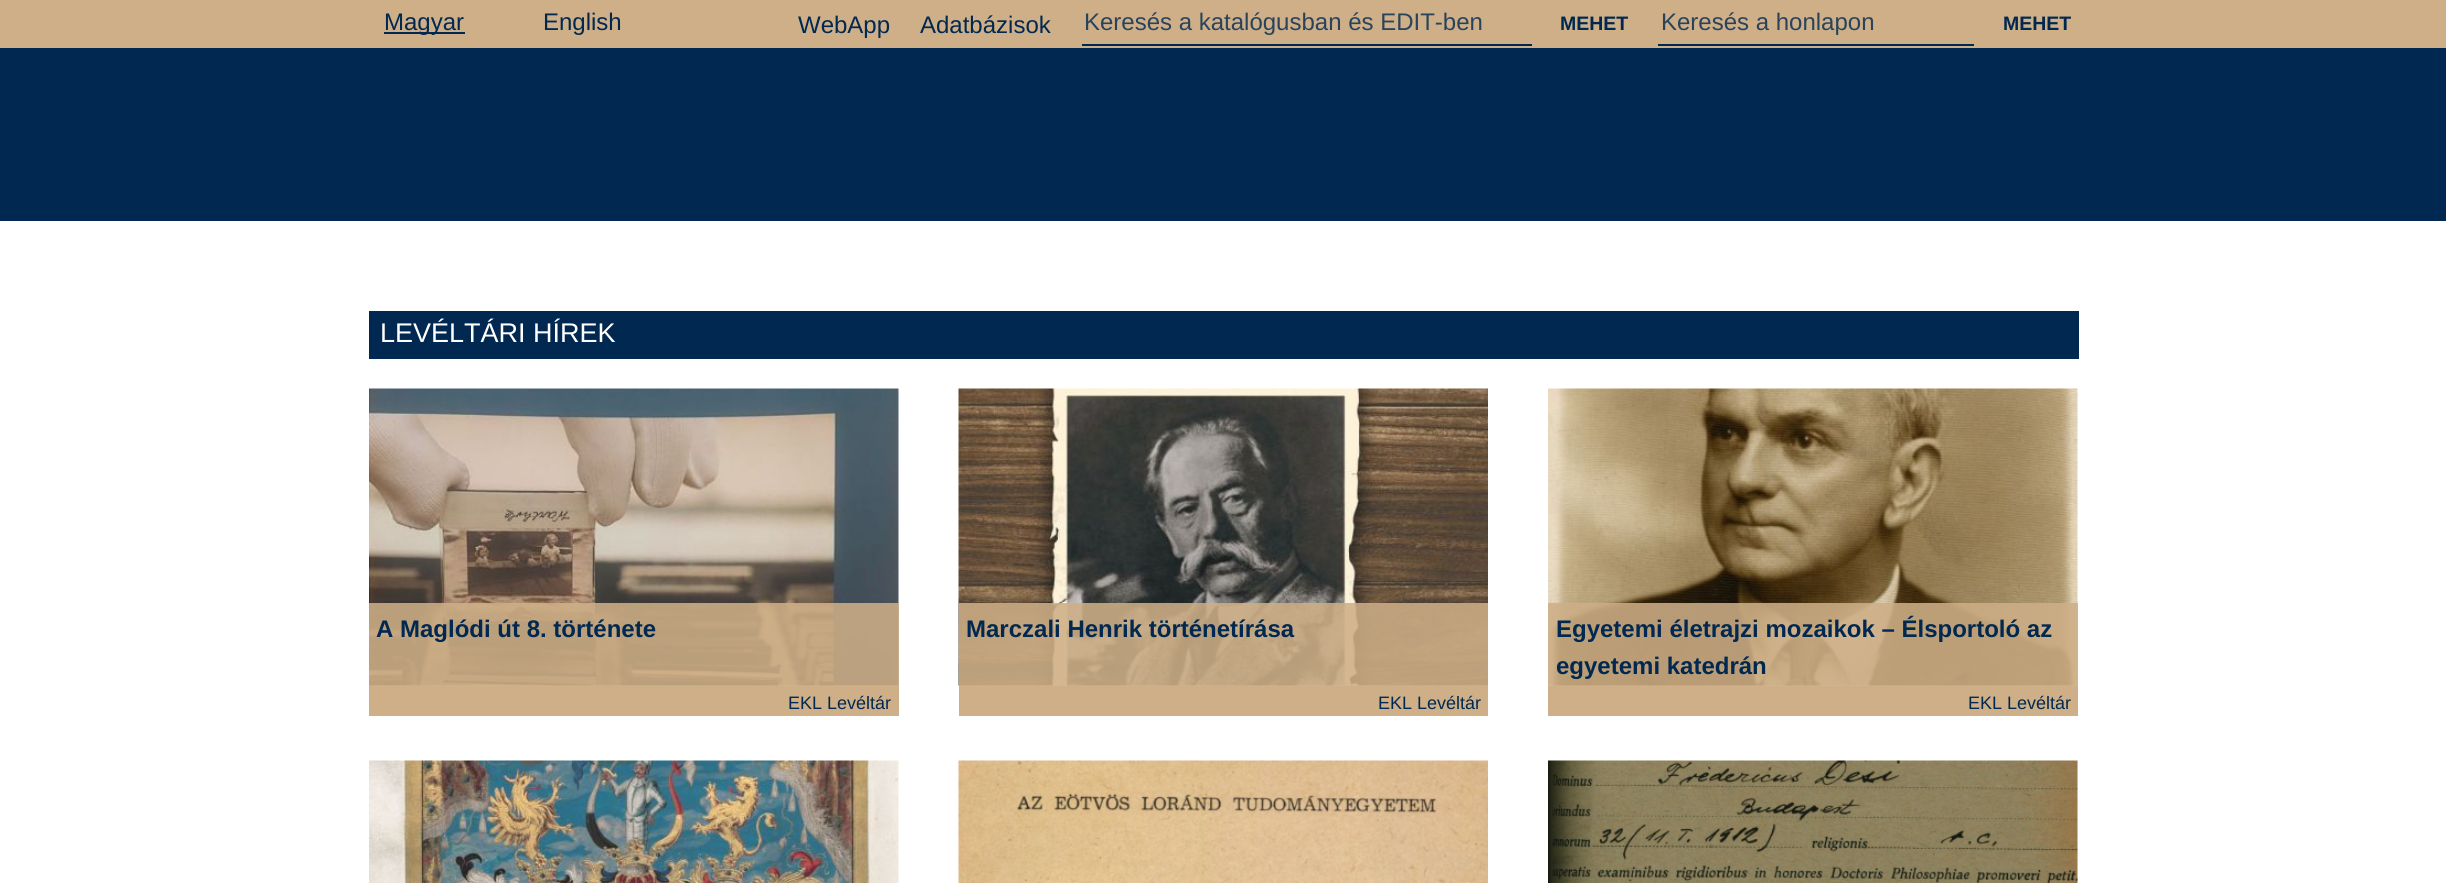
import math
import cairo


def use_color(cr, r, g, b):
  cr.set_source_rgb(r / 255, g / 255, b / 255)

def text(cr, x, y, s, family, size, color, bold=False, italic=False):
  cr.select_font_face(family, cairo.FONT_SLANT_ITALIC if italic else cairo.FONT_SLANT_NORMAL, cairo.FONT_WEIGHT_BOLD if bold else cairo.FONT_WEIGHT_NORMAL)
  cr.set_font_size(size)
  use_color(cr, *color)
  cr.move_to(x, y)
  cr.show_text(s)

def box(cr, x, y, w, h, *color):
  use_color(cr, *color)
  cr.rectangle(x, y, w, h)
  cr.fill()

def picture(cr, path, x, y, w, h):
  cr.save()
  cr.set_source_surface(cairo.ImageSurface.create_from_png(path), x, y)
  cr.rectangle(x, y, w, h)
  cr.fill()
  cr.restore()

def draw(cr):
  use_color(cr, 255, 255, 255)
  cr.paint()
  box(cr, 0, 48, 2446, 173, 1, 40, 80)
  box(cr, 0, 0, 2446, 48, 206, 175, 135)
  box(cr, 384, 32, 81, 2, 1, 40, 80)
  box(cr, 1082, 44, 450, 2, 1, 40, 80)
  box(cr, 1658, 44, 316, 2, 1, 40, 80)
  box(cr, 369, 311, 1710, 48, 1, 40, 80)
  picture(cr, "img_01.png", 369, 388, 530, 298)
  cr.set_source_rgba(0.808, 0.686, 0.529, 0.87)
  cr.rectangle(369, 603, 530, 83)
  cr.fill()
  box(cr, 369, 686, 530, 30, 206, 175, 135)
  picture(cr, "img_02.png", 958, 388, 530, 298)
  cr.set_source_rgba(0.808, 0.686, 0.529, 0.87)
  cr.rectangle(959, 603, 529, 83)
  cr.fill()
  box(cr, 959, 686, 529, 30, 206, 175, 135)
  picture(cr, "img_03.png", 1548, 388, 530, 298)
  cr.set_source_rgba(0.808, 0.686, 0.529, 0.87)
  cr.rectangle(1548, 603, 530, 83)
  cr.fill()
  box(cr, 1548, 686, 530, 30, 206, 175, 135)
  picture(cr, "img_04.png", 369, 760, 530, 123)
  picture(cr, "img_05.png", 958, 760, 530, 123)
  picture(cr, "img_06.png", 1548, 760, 530, 123)
  text(cr, 384, 30, "Magyar", "Liberation Sans", 24, (1, 40, 80))
  text(cr, 543, 30, "English", "Liberation Sans", 24, (1, 40, 80))
  text(cr, 798, 33, "WebApp", "Liberation Sans", 24, (1, 40, 80))
  text(cr, 920, 33, "Adatbázisok", "Liberation Sans", 24, (1, 40, 80))
  text(cr, 1084, 30, "Keresés a katalógusban és EDIT-ben", "Liberation Sans", 24, (42, 67, 92))
  text(cr, 1560, 30, "MEHET", "Liberation Sans", 19.5, (1, 40, 80), bold=True)
  text(cr, 1661, 30, "Keresés a honlapon", "Liberation Sans", 24, (42, 67, 92))
  text(cr, 2003, 30, "MEHET", "Liberation Sans", 19.5, (1, 40, 80), bold=True)
  text(cr, 380, 342, "LEVÉLTÁRI HÍREK", "Liberation Sans", 27, (255, 255, 255))
  text(cr, 376, 637, "A Maglódi út 8. története", "Liberation Sans", 24, (1, 40, 80), bold=True)
  text(cr, 788, 709, "EKL Levéltár", "Liberation Sans", 18, (1, 40, 80))
  text(cr, 966, 637, "Marczali Henrik történetírása", "Liberation Sans", 24, (1, 40, 80), bold=True)
  text(cr, 1378, 709, "EKL Levéltár", "Liberation Sans", 18, (1, 40, 80))
  text(cr, 1556, 637, "Egyetemi életrajzi mozaikok – Élsportoló az", "Liberation Sans", 24, (1, 40, 80), bold=True)
  text(cr, 1556, 674, "egyetemi katedrán", "Liberation Sans", 24, (1, 40, 80), bold=True)
  text(cr, 1968, 709, "EKL Levéltár", "Liberation Sans", 18, (1, 40, 80))


surface = cairo.ImageSurface(cairo.FORMAT_RGB24, 2446, 883)
cr = cairo.Context(surface)
options = cairo.FontOptions()
options.set_hint_metrics(cairo.HINT_METRICS_OFF)
options.set_hint_style(cairo.HINT_STYLE_NONE)
cr.set_font_options(options)
cr.set_miter_limit(4)
draw(cr)
surface.write_to_png("out.png")
